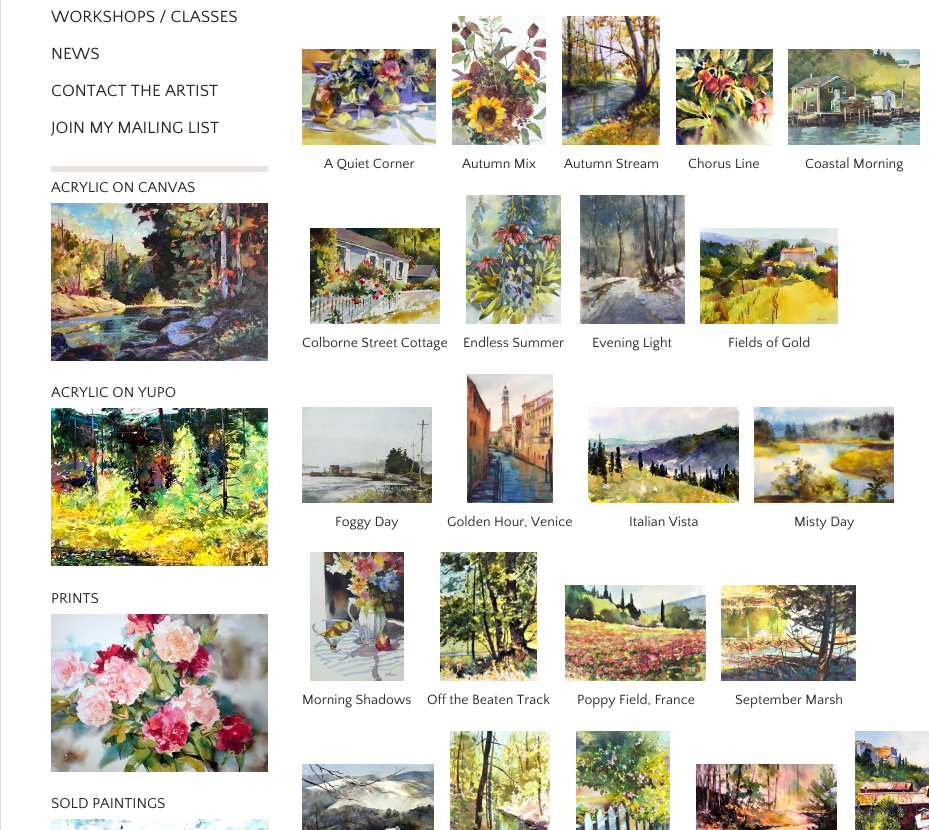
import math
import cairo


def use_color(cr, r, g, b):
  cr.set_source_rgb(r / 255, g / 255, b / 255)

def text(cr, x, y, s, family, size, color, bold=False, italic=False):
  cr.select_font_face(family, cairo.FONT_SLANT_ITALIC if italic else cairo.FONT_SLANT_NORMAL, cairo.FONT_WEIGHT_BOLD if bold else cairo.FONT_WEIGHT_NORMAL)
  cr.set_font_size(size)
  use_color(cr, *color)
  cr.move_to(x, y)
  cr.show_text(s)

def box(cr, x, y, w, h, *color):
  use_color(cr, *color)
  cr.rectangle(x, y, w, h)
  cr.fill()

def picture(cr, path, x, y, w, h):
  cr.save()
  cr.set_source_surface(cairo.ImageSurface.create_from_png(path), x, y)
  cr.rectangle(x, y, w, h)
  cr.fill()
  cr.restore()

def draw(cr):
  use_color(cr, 255, 255, 255)
  cr.paint()
  box(cr, 0, 0, 1, 830, 220, 220, 220)
  box(cr, 51, 166, 217, 6, 234, 228, 224)
  picture(cr, "img_01.png", 51, 203, 217, 158)
  picture(cr, "img_02.png", 51, 408, 217, 158)
  picture(cr, "img_03.png", 51, 614, 217, 158)
  picture(cr, "img_04.png", 51, 819, 217, 11)
  picture(cr, "img_05.png", 302, 49, 134, 96)
  picture(cr, "img_06.png", 452, 16, 94, 129)
  picture(cr, "img_07.png", 562, 16, 98, 129)
  picture(cr, "img_08.png", 676, 49, 97, 96)
  picture(cr, "img_09.png", 788, 49, 132, 96)
  picture(cr, "img_10.png", 310, 228, 130, 96)
  picture(cr, "img_11.png", 466, 195, 95, 129)
  picture(cr, "img_12.png", 580, 195, 105, 129)
  picture(cr, "img_13.png", 700, 228, 138, 96)
  picture(cr, "img_14.png", 302, 407, 130, 96)
  picture(cr, "img_15.png", 467, 374, 86, 129)
  picture(cr, "img_16.png", 588, 407, 151, 96)
  picture(cr, "img_17.png", 754, 407, 140, 96)
  picture(cr, "img_18.png", 310, 552, 94, 129)
  picture(cr, "img_19.png", 440, 552, 97, 129)
  picture(cr, "img_20.png", 565, 585, 141, 96)
  picture(cr, "img_21.png", 721, 585, 135, 96)
  picture(cr, "img_22.png", 302, 764, 132, 66)
  picture(cr, "img_23.png", 450, 731, 100, 99)
  picture(cr, "img_24.png", 576, 731, 94, 99)
  picture(cr, "img_25.png", 696, 764, 141, 66)
  picture(cr, "img_26.png", 855, 731, 74, 99)
  text(cr, 51, 22, "WORKSHOPS / CLASSES", "Quattrocento Sans", 17, (39, 39, 39))
  text(cr, 51, 59, "NEWS", "Quattrocento Sans", 17, (39, 39, 39))
  text(cr, 51, 96, "CONTACT THE ARTIST", "Quattrocento Sans", 17, (39, 39, 39))
  text(cr, 51, 133, "JOIN MY MAILING LIST", "Quattrocento Sans", 17, (39, 39, 39))
  text(cr, 51, 192, "ACRYLIC ON CANVAS", "Quattrocento Sans", 15, (39, 39, 39))
  text(cr, 51, 397, "ACRYLIC ON YUPO", "Quattrocento Sans", 15, (39, 39, 39))
  text(cr, 51, 603, "PRINTS", "Quattrocento Sans", 15, (39, 39, 39))
  text(cr, 51, 808, "SOLD PAINTINGS", "Quattrocento Sans", 15, (39, 39, 39))
  text(cr, 324, 168, "A Quiet Corner", "Quattrocento Sans", 14, (39, 39, 39))
  text(cr, 462, 168, "Autumn Mix", "Quattrocento Sans", 14, (39, 39, 39))
  text(cr, 564, 168, "Autumn Stream", "Quattrocento Sans", 14, (39, 39, 39))
  text(cr, 688, 168, "Chorus Line", "Quattrocento Sans", 14, (39, 39, 39))
  text(cr, 805, 168, "Coastal Morning", "Quattrocento Sans", 14, (39, 39, 39))
  text(cr, 302, 347, "Colborne Street Cottage", "Quattrocento Sans", 14, (39, 39, 39))
  text(cr, 463, 347, "Endless Summer", "Quattrocento Sans", 14, (39, 39, 39))
  text(cr, 592, 347, "Evening Light", "Quattrocento Sans", 14, (39, 39, 39))
  text(cr, 728, 347, "Fields of Gold", "Quattrocento Sans", 14, (39, 39, 39))
  text(cr, 335, 526, "Foggy Day", "Quattrocento Sans", 14, (39, 39, 39))
  text(cr, 447, 526, "Golden Hour, Venice", "Quattrocento Sans", 14, (39, 39, 39))
  text(cr, 629, 526, "Italian Vista", "Quattrocento Sans", 14, (39, 39, 39))
  text(cr, 794, 526, "Misty Day", "Quattrocento Sans", 14, (39, 39, 39))
  text(cr, 302, 704, "Morning Shadows", "Quattrocento Sans", 14, (39, 39, 39))
  text(cr, 427, 704, "Off the Beaten Track", "Quattrocento Sans", 14, (39, 39, 39))
  text(cr, 577, 704, "Poppy Field, France", "Quattrocento Sans", 14, (39, 39, 39))
  text(cr, 735, 704, "September Marsh", "Quattrocento Sans", 14, (39, 39, 39))


surface = cairo.ImageSurface(cairo.FORMAT_RGB24, 929, 830)
cr = cairo.Context(surface)
options = cairo.FontOptions()
options.set_hint_metrics(cairo.HINT_METRICS_OFF)
options.set_hint_style(cairo.HINT_STYLE_NONE)
cr.set_font_options(options)
cr.set_miter_limit(4)
draw(cr)
surface.write_to_png("out.png")
